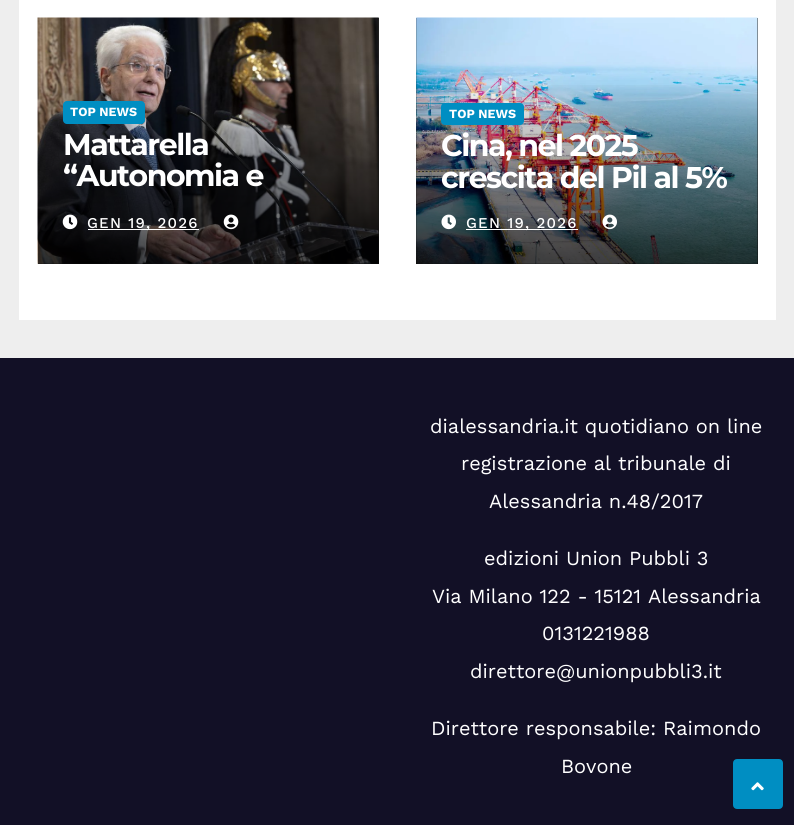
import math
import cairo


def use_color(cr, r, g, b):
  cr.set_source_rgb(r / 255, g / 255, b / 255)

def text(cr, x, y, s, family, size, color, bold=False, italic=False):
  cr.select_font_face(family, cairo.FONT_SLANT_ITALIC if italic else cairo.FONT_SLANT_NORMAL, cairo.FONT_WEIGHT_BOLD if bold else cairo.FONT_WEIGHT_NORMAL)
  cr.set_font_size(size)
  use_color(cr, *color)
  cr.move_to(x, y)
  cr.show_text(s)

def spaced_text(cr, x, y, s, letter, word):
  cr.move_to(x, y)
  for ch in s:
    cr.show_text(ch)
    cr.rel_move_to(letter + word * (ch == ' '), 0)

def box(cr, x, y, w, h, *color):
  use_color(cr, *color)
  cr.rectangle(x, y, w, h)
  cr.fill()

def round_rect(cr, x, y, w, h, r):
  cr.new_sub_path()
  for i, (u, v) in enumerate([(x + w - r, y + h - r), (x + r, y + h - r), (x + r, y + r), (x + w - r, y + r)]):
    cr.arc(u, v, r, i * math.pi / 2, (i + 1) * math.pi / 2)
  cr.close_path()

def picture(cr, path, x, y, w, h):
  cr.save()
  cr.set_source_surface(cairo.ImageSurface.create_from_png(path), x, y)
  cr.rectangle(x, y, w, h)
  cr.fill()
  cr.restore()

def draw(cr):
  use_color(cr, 238, 238, 238)
  cr.paint()
  box(cr, 19, 0, 757, 320, 255, 255, 255)
  box(cr, 38, 18, 341, 246, 51, 51, 51)
  picture(cr, "img_01.png", 37, 17, 342, 247)
  gradient = cairo.LinearGradient(208, 79, 208, 264)
  gradient.add_color_stop_rgba(0, 0, 0, 0, 0)
  gradient.add_color_stop_rgba(0.5, 0, 0, 0, 0.4)
  gradient.add_color_stop_rgba(1, 0, 0, 0, 0.7)
  cr.set_source(gradient)
  cr.rectangle(38, 84, 341, 180)
  cr.fill()
  use_color(cr, 0, 142, 194)
  round_rect(cr, 63, 101, 82, 23, 4)
  cr.fill()
  picture(cr, "img_02.png", 62, 214, 16, 16)
  box(cr, 88, 229, 111, 1, 255, 255, 255)
  picture(cr, "img_03.png", 223, 214, 16, 16)
  box(cr, 416, 18, 342, 246, 51, 51, 51)
  picture(cr, "img_04.png", 416, 17, 342, 247)
  gradient = cairo.LinearGradient(587, 80, 587, 264)
  gradient.add_color_stop_rgba(0, 0, 0, 0, 0)
  gradient.add_color_stop_rgba(0.5, 0, 0, 0, 0.4)
  gradient.add_color_stop_rgba(1, 0, 0, 0, 0.7)
  cr.set_source(gradient)
  cr.rectangle(416, 85, 342, 179)
  cr.fill()
  use_color(cr, 0, 142, 194)
  round_rect(cr, 441, 103, 83, 22, 4)
  cr.fill()
  picture(cr, "img_05.png", 441, 214, 15, 16)
  box(cr, 466, 229, 112, 1, 255, 255, 255)
  picture(cr, "img_06.png", 602, 214, 15, 16)
  box(cr, 0, 358, 794, 467, 18, 16, 38)
  use_color(cr, 0, 142, 194)
  round_rect(cr, 734.5, 760.5, 47, 47, 2.5)
  cr.fill_preserve()
  cr.set_line_width(3)
  cr.stroke()
  picture(cr, "img_07.png", 751, 782, 13, 9)
  text(cr, 70, 116, "TOP NEWS", "Work Sans", 12.5, (255, 255, 255), bold=True)
  cr.select_font_face("Montserrat", cairo.FONT_SLANT_NORMAL, cairo.FONT_WEIGHT_BOLD)
  cr.set_font_size(30)
  spaced_text(cr, 63, 155, "Mattarella", -1.5, 0)
  spaced_text(cr, 63, 186, "“Autonomia e", -1.5, 0)
  cr.select_font_face("Work Sans Medium")
  cr.set_font_size(15)
  spaced_text(cr, 87, 228, "GEN 19, 2026", 1.25, 0)
  text(cr, 449, 118, "TOP NEWS", "Work Sans", 12.5, (255, 255, 255), bold=True)
  cr.select_font_face("Montserrat", cairo.FONT_SLANT_NORMAL, cairo.FONT_WEIGHT_BOLD)
  cr.set_font_size(30)
  spaced_text(cr, 441, 156, "Cina, nel 2025", -1.5, 0)
  spaced_text(cr, 441, 188, "crescita del Pil al 5%", -1.5, 0)
  cr.select_font_face("Work Sans Medium")
  cr.set_font_size(15)
  spaced_text(cr, 466, 228, "GEN 19, 2026", 1.25, 0)
  text(cr, 430, 433, "dialessandria.it quotidiano on line", "Work Sans", 20, (255, 255, 255))
  text(cr, 461, 470, "registrazione al tribunale di", "Work Sans", 20, (255, 255, 255))
  text(cr, 489, 508, "Alessandria n.48/2017", "Work Sans", 20, (255, 255, 255))
  text(cr, 484, 565, "edizioni Union Pubbli 3", "Work Sans", 20, (255, 255, 255))
  text(cr, 432, 603, "Via Milano 122 - 15121 Alessandria", "Work Sans", 20, (255, 255, 255))
  text(cr, 542, 640, "0131221988", "Work Sans", 20, (255, 255, 255))
  text(cr, 470, 678, "direttore@unionpubbli3.it", "Work Sans", 20, (255, 255, 255))
  text(cr, 431, 735, "Direttore responsabile: Raimondo", "Work Sans", 20, (255, 255, 255))
  text(cr, 561, 773, "Bovone", "Work Sans", 20, (255, 255, 255))


surface = cairo.ImageSurface(cairo.FORMAT_RGB24, 794, 825)
cr = cairo.Context(surface)
options = cairo.FontOptions()
options.set_hint_metrics(cairo.HINT_METRICS_OFF)
options.set_hint_style(cairo.HINT_STYLE_NONE)
cr.set_font_options(options)
cr.set_miter_limit(4)
draw(cr)
surface.write_to_png("out.png")
